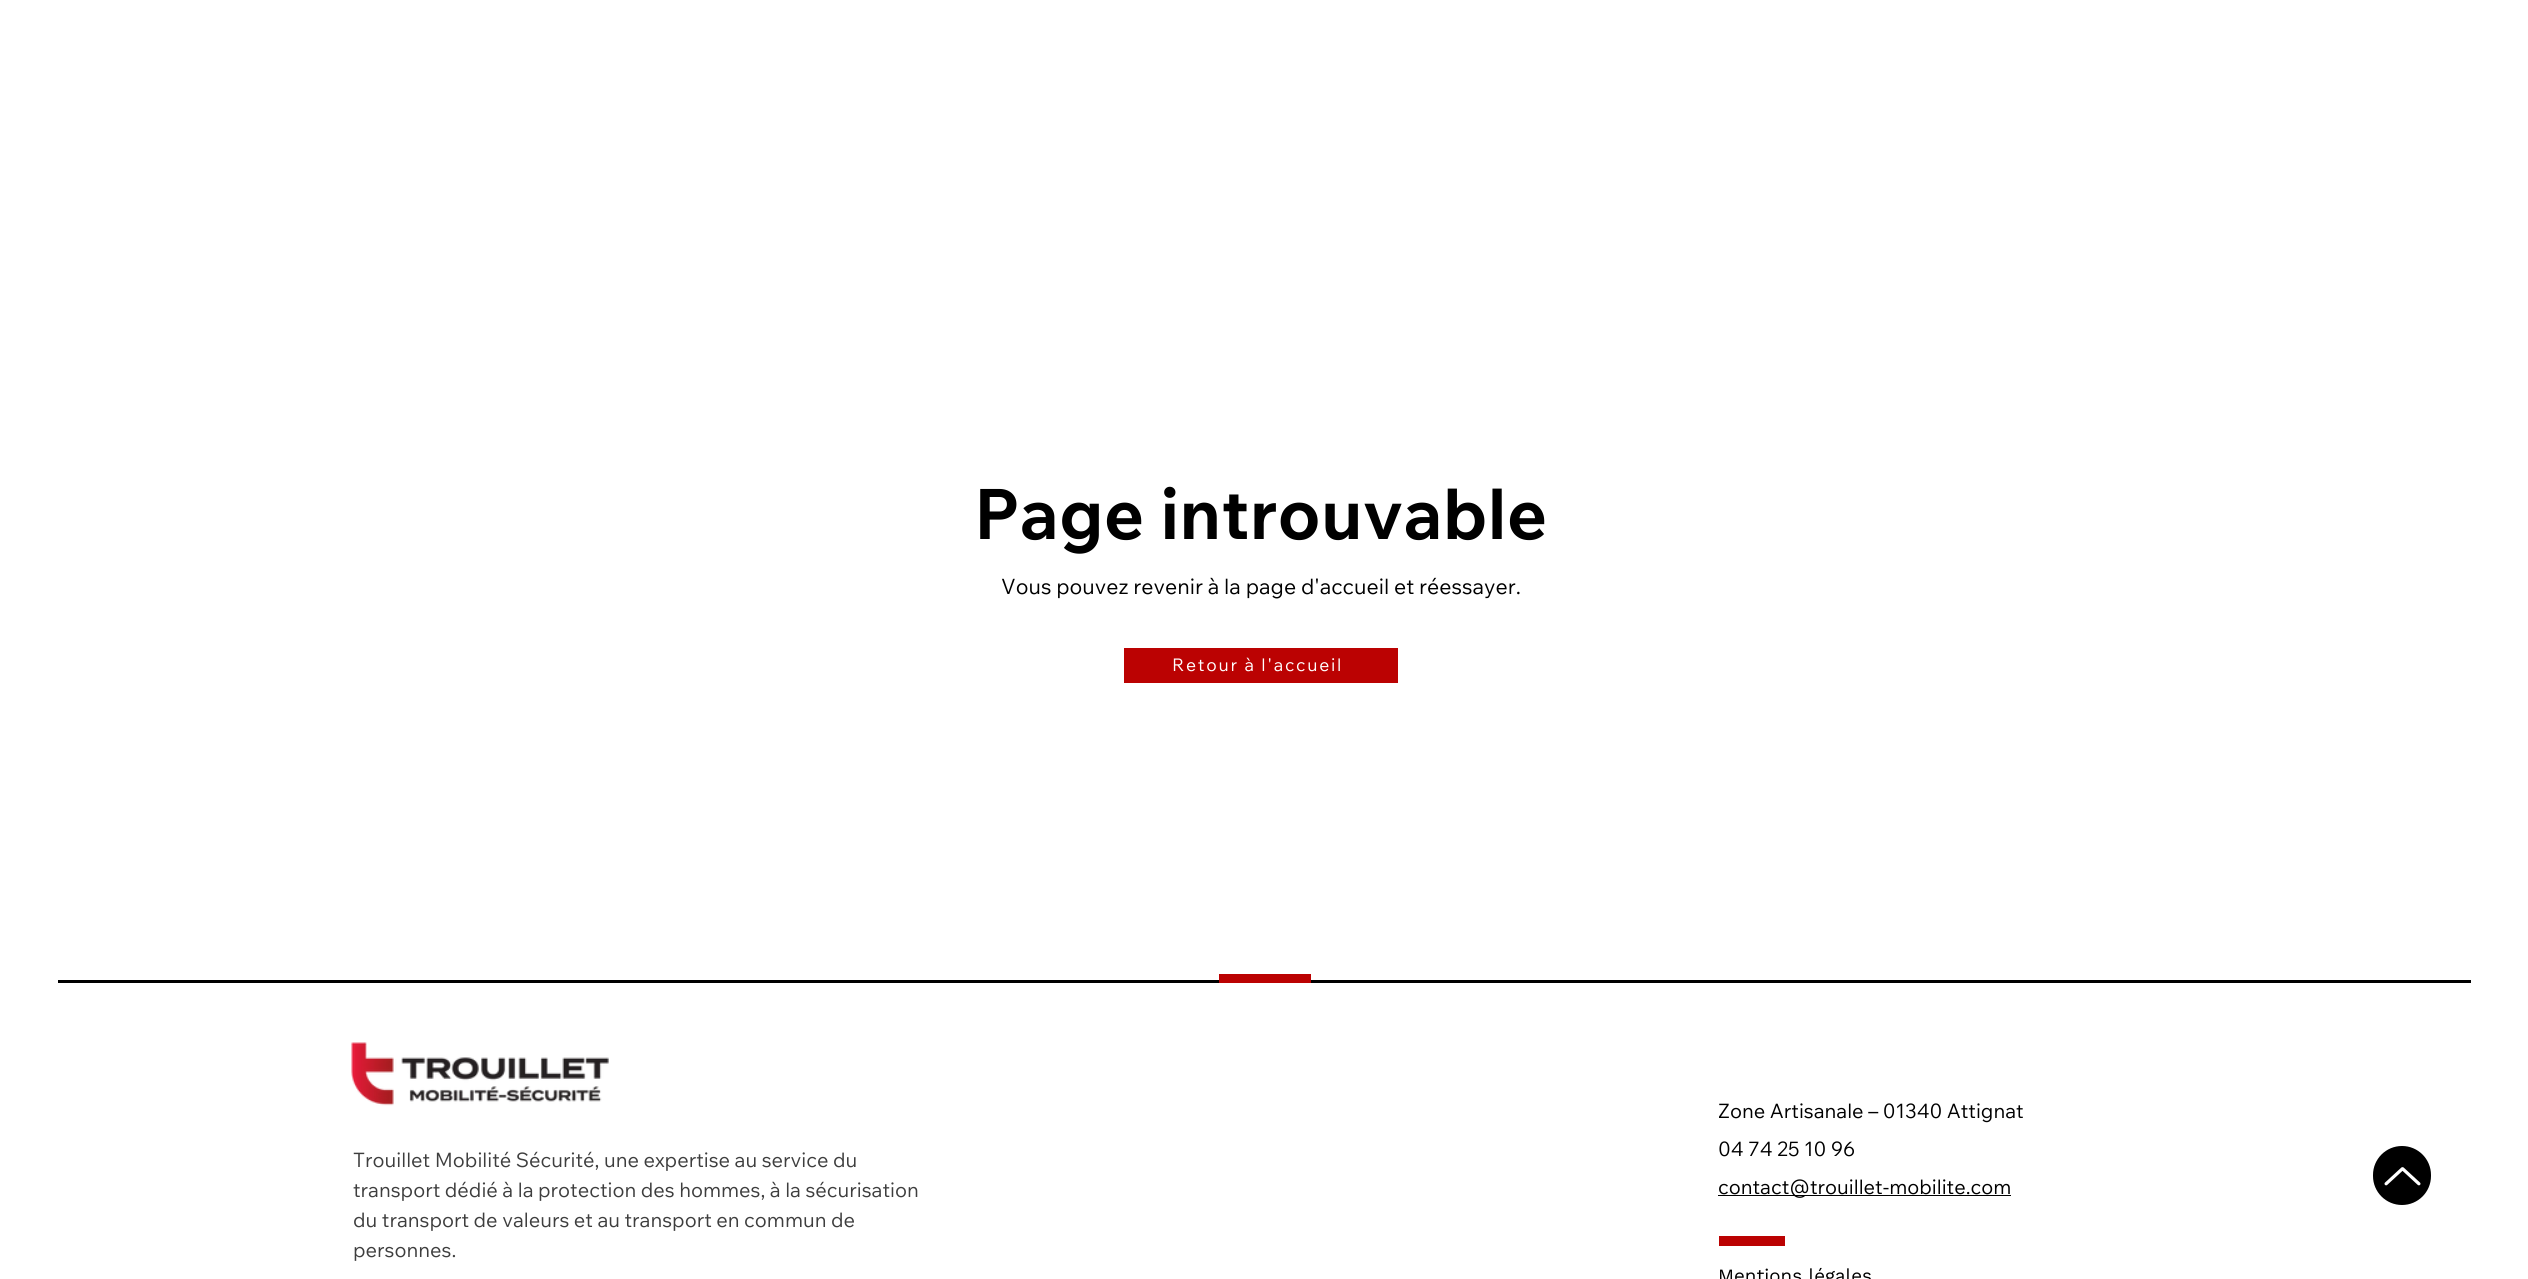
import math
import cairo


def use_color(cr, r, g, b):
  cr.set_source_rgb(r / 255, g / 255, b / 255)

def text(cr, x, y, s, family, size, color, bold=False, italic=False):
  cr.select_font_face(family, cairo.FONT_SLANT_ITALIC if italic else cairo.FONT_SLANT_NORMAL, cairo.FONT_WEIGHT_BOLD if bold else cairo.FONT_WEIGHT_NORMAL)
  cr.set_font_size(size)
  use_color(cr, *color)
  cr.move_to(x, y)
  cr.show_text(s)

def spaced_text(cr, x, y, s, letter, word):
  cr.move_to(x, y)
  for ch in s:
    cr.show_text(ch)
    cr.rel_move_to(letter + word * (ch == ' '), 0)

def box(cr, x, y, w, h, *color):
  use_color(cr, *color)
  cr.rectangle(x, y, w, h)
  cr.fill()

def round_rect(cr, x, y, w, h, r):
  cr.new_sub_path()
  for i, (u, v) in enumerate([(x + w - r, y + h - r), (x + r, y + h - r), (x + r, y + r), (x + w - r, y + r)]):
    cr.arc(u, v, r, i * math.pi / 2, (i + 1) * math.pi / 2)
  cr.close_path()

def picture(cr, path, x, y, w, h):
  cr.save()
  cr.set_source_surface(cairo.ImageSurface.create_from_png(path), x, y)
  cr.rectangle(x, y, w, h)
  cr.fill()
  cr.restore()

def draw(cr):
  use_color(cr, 255, 255, 255)
  cr.paint()
  box(cr, 1124, 648, 274, 35, 187, 2, 2)
  box(cr, 58, 980, 2413, 3, 0, 0, 0)
  box(cr, 1219, 974, 92, 9, 187, 2, 2)
  picture(cr, "img_01.png", 351, 1042, 258, 64)
  box(cr, 1718, 1195, 293, 1, 0, 0, 0)
  box(cr, 1719, 1236, 66, 10, 187, 2, 2)
  use_color(cr, 0, 0, 0)
  round_rect(cr, 2373, 1146, 58, 59, 29)
  cr.fill()
  picture(cr, "img_02.png", 2384, 1167, 37, 19)
  text(cr, 974, 539, "Page introuvable", "Wix Madefor Text", 70, (0, 0, 0), bold=True)
  text(cr, 1001, 594, "Vous pouvez revenir à la page d'accueil et réessayer.", "Wix Madefor Text", 21.25, (0, 0, 0))
  cr.set_font_size(17.5)
  use_color(cr, 255, 255, 255)
  spaced_text(cr, 1172, 671, "Retour à l'accueil", 1.75, 0)
  text(cr, 353, 1167, "Trouillet Mobilité Sécurité, une expertise au service du", "Wix Madefor Text", 20, (62, 62, 62))
  text(cr, 353, 1197, "transport dédié à la protection des hommes, à la sécurisation", "Wix Madefor Text", 20, (62, 62, 62))
  text(cr, 353, 1227, "du transport de valeurs et au transport en commun de", "Wix Madefor Text", 20, (62, 62, 62))
  text(cr, 353, 1257, "personnes.", "Wix Madefor Text", 20, (62, 62, 62))
  text(cr, 1718, 1118, "Zone Artisanale – 01340 Attignat", "Wix Madefor Text", 20, (0, 0, 0))
  text(cr, 1718, 1156, "04 74 25 10 96", "Wix Madefor Text", 20, (0, 0, 0))
  text(cr, 1718, 1194, "contact@trouillet-mobilite.com", "Wix Madefor Text", 20, (0, 0, 0))
  text(cr, 1718, 1282, "Mentions légales", "Work Sans", 18.75, (0, 0, 0))


surface = cairo.ImageSurface(cairo.FORMAT_RGB24, 2528, 1279)
cr = cairo.Context(surface)
options = cairo.FontOptions()
options.set_hint_metrics(cairo.HINT_METRICS_OFF)
options.set_hint_style(cairo.HINT_STYLE_NONE)
cr.set_font_options(options)
cr.set_miter_limit(4)
draw(cr)
surface.write_to_png("out.png")
